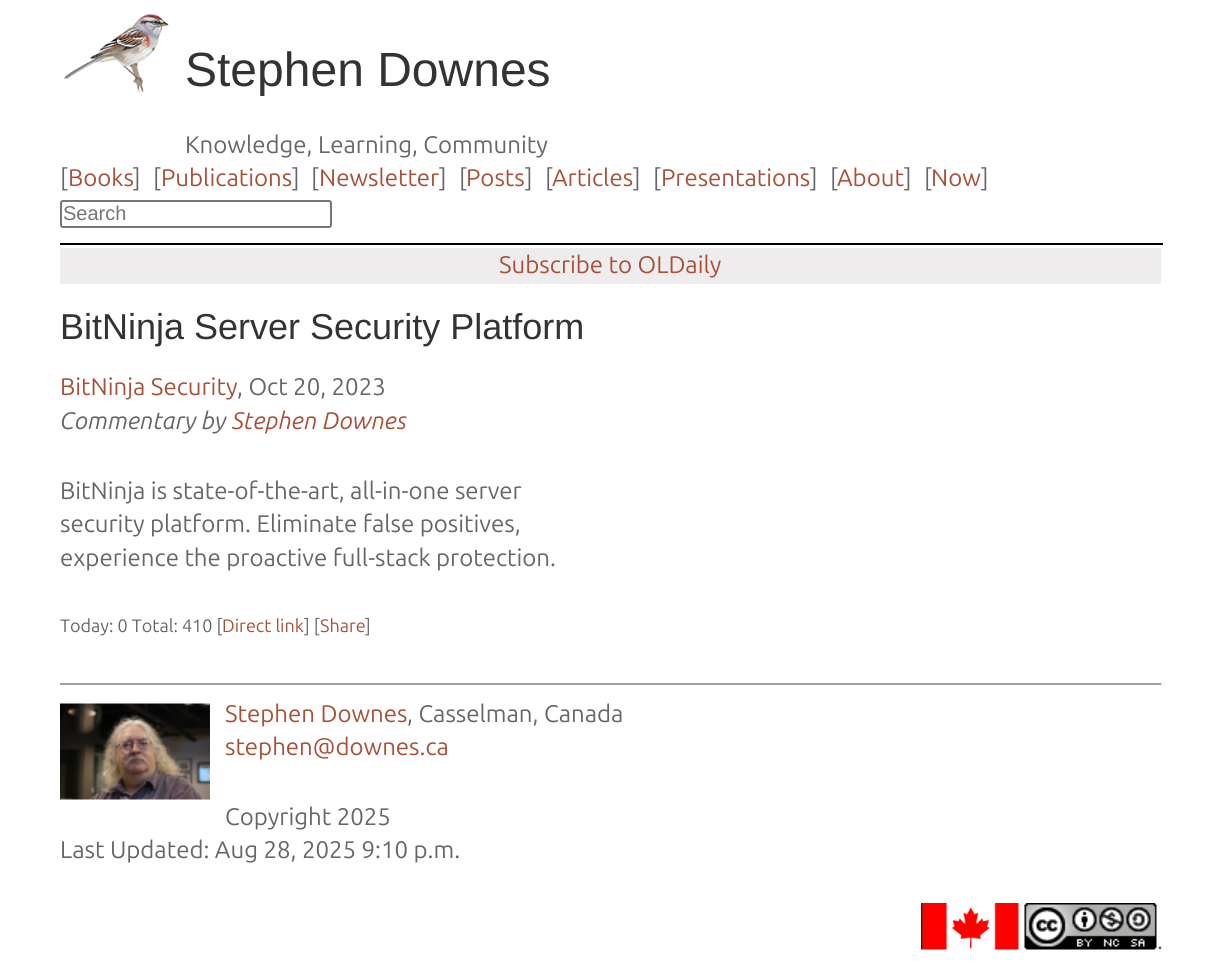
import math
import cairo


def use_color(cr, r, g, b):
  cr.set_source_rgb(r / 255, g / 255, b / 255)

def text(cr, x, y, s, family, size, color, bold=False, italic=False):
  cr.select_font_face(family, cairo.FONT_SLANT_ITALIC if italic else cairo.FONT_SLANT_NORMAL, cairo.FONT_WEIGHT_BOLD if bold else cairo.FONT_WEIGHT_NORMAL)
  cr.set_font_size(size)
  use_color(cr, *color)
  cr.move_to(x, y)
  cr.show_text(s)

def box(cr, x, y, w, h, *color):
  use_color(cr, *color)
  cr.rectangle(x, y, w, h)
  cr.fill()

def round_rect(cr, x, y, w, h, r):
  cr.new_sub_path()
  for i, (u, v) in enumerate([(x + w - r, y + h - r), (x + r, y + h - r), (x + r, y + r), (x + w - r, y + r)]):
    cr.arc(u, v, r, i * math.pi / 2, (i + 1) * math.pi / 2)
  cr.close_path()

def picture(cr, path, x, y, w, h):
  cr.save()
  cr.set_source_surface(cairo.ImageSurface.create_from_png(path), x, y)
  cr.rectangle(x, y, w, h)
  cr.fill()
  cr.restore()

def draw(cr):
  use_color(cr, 255, 255, 255)
  cr.paint()
  picture(cr, "img_01.png", 64, 14, 105, 79)
  box(cr, 60, 243, 1103, 2, 0, 0, 0)
  round_rect(cr, 61, 201, 270, 26, 2)
  use_color(cr, 118, 118, 118)
  cr.stroke()
  box(cr, 60, 248, 1101, 36, 238, 236, 236)
  box(cr, 60, 683, 1103, 2, 159, 159, 159)
  box(cr, 1161, 683, 2, 2, 238, 238, 238)
  picture(cr, "img_02.png", 60, 703, 150, 97)
  picture(cr, "img_03.png", 921, 903, 98, 47)
  picture(cr, "img_04.png", 1024, 903, 133, 47)
  text(cr, 185, 86, "Stephen Downes", "Liberation Sans", 48, (51, 51, 51))
  text(cr, 185, 153, "Knowledge, Learning, Community", "Ubuntu", 24, (102, 102, 102))
  text(cr, 60, 186, "[", "Ubuntu", 24, (102, 102, 102))
  text(cr, 68, 186, "Books", "Ubuntu", 24, (168, 80, 56))
  text(cr, 133, 186, "]", "Ubuntu", 24, (102, 102, 102))
  text(cr, 153, 186, "[", "Ubuntu", 24, (102, 102, 102))
  text(cr, 161, 186, "Publications", "Ubuntu", 24, (168, 80, 56))
  text(cr, 292, 186, "]", "Ubuntu", 24, (102, 102, 102))
  text(cr, 311, 186, "[", "Ubuntu", 24, (102, 102, 102))
  text(cr, 319, 186, "Newsletter", "Ubuntu", 24, (168, 80, 56))
  text(cr, 439, 186, "]", "Ubuntu", 24, (102, 102, 102))
  text(cr, 459, 186, "[", "Ubuntu", 24, (102, 102, 102))
  text(cr, 466, 186, "Posts", "Ubuntu", 24, (168, 80, 56))
  text(cr, 525, 186, "]", "Ubuntu", 24, (102, 102, 102))
  text(cr, 545, 186, "[", "Ubuntu", 24, (102, 102, 102))
  text(cr, 552, 186, "Articles", "Ubuntu", 24, (168, 80, 56))
  text(cr, 633, 186, "]", "Ubuntu", 24, (102, 102, 102))
  text(cr, 653, 186, "[", "Ubuntu", 24, (102, 102, 102))
  text(cr, 661, 186, "Presentations", "Ubuntu", 24, (168, 80, 56))
  text(cr, 810, 186, "]", "Ubuntu", 24, (102, 102, 102))
  text(cr, 830, 186, "[", "Ubuntu", 24, (102, 102, 102))
  text(cr, 837, 186, "About", "Ubuntu", 24, (168, 80, 56))
  text(cr, 904, 186, "]", "Ubuntu", 24, (102, 102, 102))
  text(cr, 924, 186, "[", "Ubuntu", 24, (102, 102, 102))
  text(cr, 931, 186, "Now", "Ubuntu", 24, (168, 80, 56))
  text(cr, 981, 186, "]", "Ubuntu", 24, (102, 102, 102))
  text(cr, 63, 220, "Search", "Liberation Sans", 20, (117, 117, 117))
  text(cr, 499, 273, "Subscribe to OLDaily", "Ubuntu", 24, (168, 80, 56))
  text(cr, 60, 339, "BitNinja Server Security Platform", "Liberation Sans", 36, (51, 51, 51))
  text(cr, 60, 395, "BitNinja Security", "Ubuntu", 24, (168, 80, 56))
  text(cr, 237, 395, ", Oct 20, 2023", "Ubuntu", 24, (102, 102, 102))
  text(cr, 60, 429, "Commentary by", "Ubuntu", 24, (102, 102, 102), italic=True)
  text(cr, 232, 429, "Stephen Downes", "Ubuntu", 24, (168, 80, 56), italic=True)
  text(cr, 60, 499, "BitNinja is state-of-the-art, all-in-one server", "Ubuntu", 24, (102, 102, 102))
  text(cr, 60, 532, "security platform. Eliminate false positives,", "Ubuntu", 24, (102, 102, 102))
  text(cr, 60, 566, "experience the proactive full-stack protection.", "Ubuntu", 24, (102, 102, 102))
  text(cr, 60, 632, "Today: 0 Total: 410 [", "Ubuntu", 18, (102, 102, 102))
  text(cr, 222, 632, "Direct link", "Ubuntu", 18, (168, 80, 56))
  text(cr, 304, 632, "] [", "Ubuntu", 18, (102, 102, 102))
  text(cr, 320, 632, "Share", "Ubuntu", 18, (168, 80, 56))
  text(cr, 365, 632, "]", "Ubuntu", 18, (102, 102, 102))
  text(cr, 225, 722, "Stephen Downes", "Ubuntu", 24, (168, 80, 56))
  text(cr, 407, 722, ", Casselman, Canada", "Ubuntu", 24, (102, 102, 102))
  text(cr, 225, 755, "stephen@downes.ca", "Ubuntu", 24, (168, 80, 56))
  text(cr, 225, 825, "Copyright 2025", "Ubuntu", 24, (102, 102, 102))
  text(cr, 60, 858, "Last Updated: Aug 28, 2025 9:10 p.m.", "Ubuntu", 24, (102, 102, 102))
  text(cr, 1157, 949, ".", "Ubuntu", 24, (102, 102, 102))


surface = cairo.ImageSurface(cairo.FORMAT_RGB24, 1222, 966)
cr = cairo.Context(surface)
options = cairo.FontOptions()
options.set_hint_metrics(cairo.HINT_METRICS_OFF)
options.set_hint_style(cairo.HINT_STYLE_NONE)
cr.set_font_options(options)
cr.set_miter_limit(4)
draw(cr)
surface.write_to_png("out.png")
